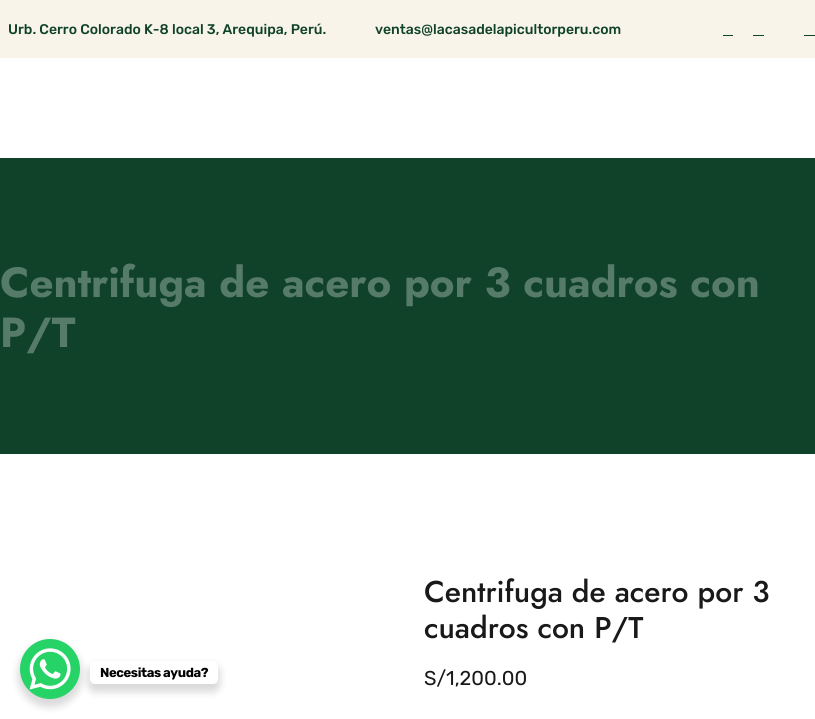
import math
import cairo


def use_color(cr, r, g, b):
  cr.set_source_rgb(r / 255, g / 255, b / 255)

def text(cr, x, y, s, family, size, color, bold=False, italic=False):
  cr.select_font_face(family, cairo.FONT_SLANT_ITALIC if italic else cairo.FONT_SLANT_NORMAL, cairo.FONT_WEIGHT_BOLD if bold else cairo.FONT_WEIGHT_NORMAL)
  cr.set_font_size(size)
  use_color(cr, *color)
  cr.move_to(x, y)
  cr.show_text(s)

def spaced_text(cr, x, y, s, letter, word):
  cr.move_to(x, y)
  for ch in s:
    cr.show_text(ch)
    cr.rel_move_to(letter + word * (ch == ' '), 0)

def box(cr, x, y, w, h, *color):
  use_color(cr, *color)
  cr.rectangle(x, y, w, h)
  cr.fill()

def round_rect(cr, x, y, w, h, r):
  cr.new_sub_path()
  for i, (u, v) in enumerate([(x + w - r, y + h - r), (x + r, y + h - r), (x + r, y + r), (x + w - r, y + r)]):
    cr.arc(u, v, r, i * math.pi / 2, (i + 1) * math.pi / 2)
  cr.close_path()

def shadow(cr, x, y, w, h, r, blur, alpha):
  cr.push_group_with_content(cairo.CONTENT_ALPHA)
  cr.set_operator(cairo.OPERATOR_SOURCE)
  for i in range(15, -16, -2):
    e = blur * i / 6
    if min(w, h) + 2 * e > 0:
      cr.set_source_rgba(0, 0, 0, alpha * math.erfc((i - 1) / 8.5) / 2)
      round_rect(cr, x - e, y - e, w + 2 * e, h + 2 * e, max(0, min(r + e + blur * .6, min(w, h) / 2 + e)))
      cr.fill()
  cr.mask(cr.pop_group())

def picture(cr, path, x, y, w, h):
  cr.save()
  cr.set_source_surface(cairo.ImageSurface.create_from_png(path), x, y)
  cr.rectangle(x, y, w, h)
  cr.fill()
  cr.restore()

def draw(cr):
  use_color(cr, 255, 255, 255)
  cr.paint()
  box(cr, 0, 0, 815, 58, 248, 244, 234)
  box(cr, 723, 35, 10, 1, 15, 66, 41)
  box(cr, 753, 35, 11, 1, 15, 66, 41)
  box(cr, 804, 35, 11, 1, 15, 66, 41)
  box(cr, 0, 158, 815, 296, 15, 66, 41)
  use_color(cr, 0, 0, 0)
  shadow(cr, 18, 643, 64, 64, 32, 4, 0.15)
  use_color(cr, 37, 211, 102)
  cr.arc(50, 669, 30, 0, 2 * math.pi)
  cr.fill()
  picture(cr, "img_01.png", 29, 648, 42, 42)
  use_color(cr, 0, 0, 0)
  shadow(cr, 88, 665, 132, 27, 7, 4, 0.15)
  use_color(cr, 255, 255, 255)
  round_rect(cr, 90, 661, 128, 23, 5)
  cr.fill()
  text(cr, 8, 34, "Urb. Cerro Colorado K-8 local 3, Arequipa, Perú.", "Rubik Medium", 14, (15, 66, 41))
  text(cr, 375, 34, "ventas@lacasadelapicultorperu.com", "Rubik Medium", 14, (15, 66, 41))
  text(cr, 0, 297, "Centrifuga de acero por 3 cuadros con", "Jost", 42, (87, 123, 105), bold=True)
  text(cr, 0, 347, "P/T", "Jost", 42, (87, 123, 105), bold=True)
  text(cr, 424, 602, "Centrifuga de acero por 3", "Jost Medium", 30, (25, 25, 25))
  text(cr, 424, 638, "cuadros con P/T", "Jost Medium", 30, (25, 25, 25))
  text(cr, 424, 685, "S/1,200.00", "Rubik", 20, (25, 25, 25))
  cr.select_font_face("Rubik", cairo.FONT_SLANT_NORMAL, cairo.FONT_WEIGHT_BOLD)
  cr.set_font_size(13)
  use_color(cr, 0, 0, 0)
  spaced_text(cr, 100, 677, "Necesitas ayuda?", -0.4, 0)


surface = cairo.ImageSurface(cairo.FORMAT_RGB24, 815, 719)
cr = cairo.Context(surface)
options = cairo.FontOptions()
options.set_hint_metrics(cairo.HINT_METRICS_OFF)
options.set_hint_style(cairo.HINT_STYLE_NONE)
cr.set_font_options(options)
cr.set_miter_limit(4)
draw(cr)
surface.write_to_png("out.png")
